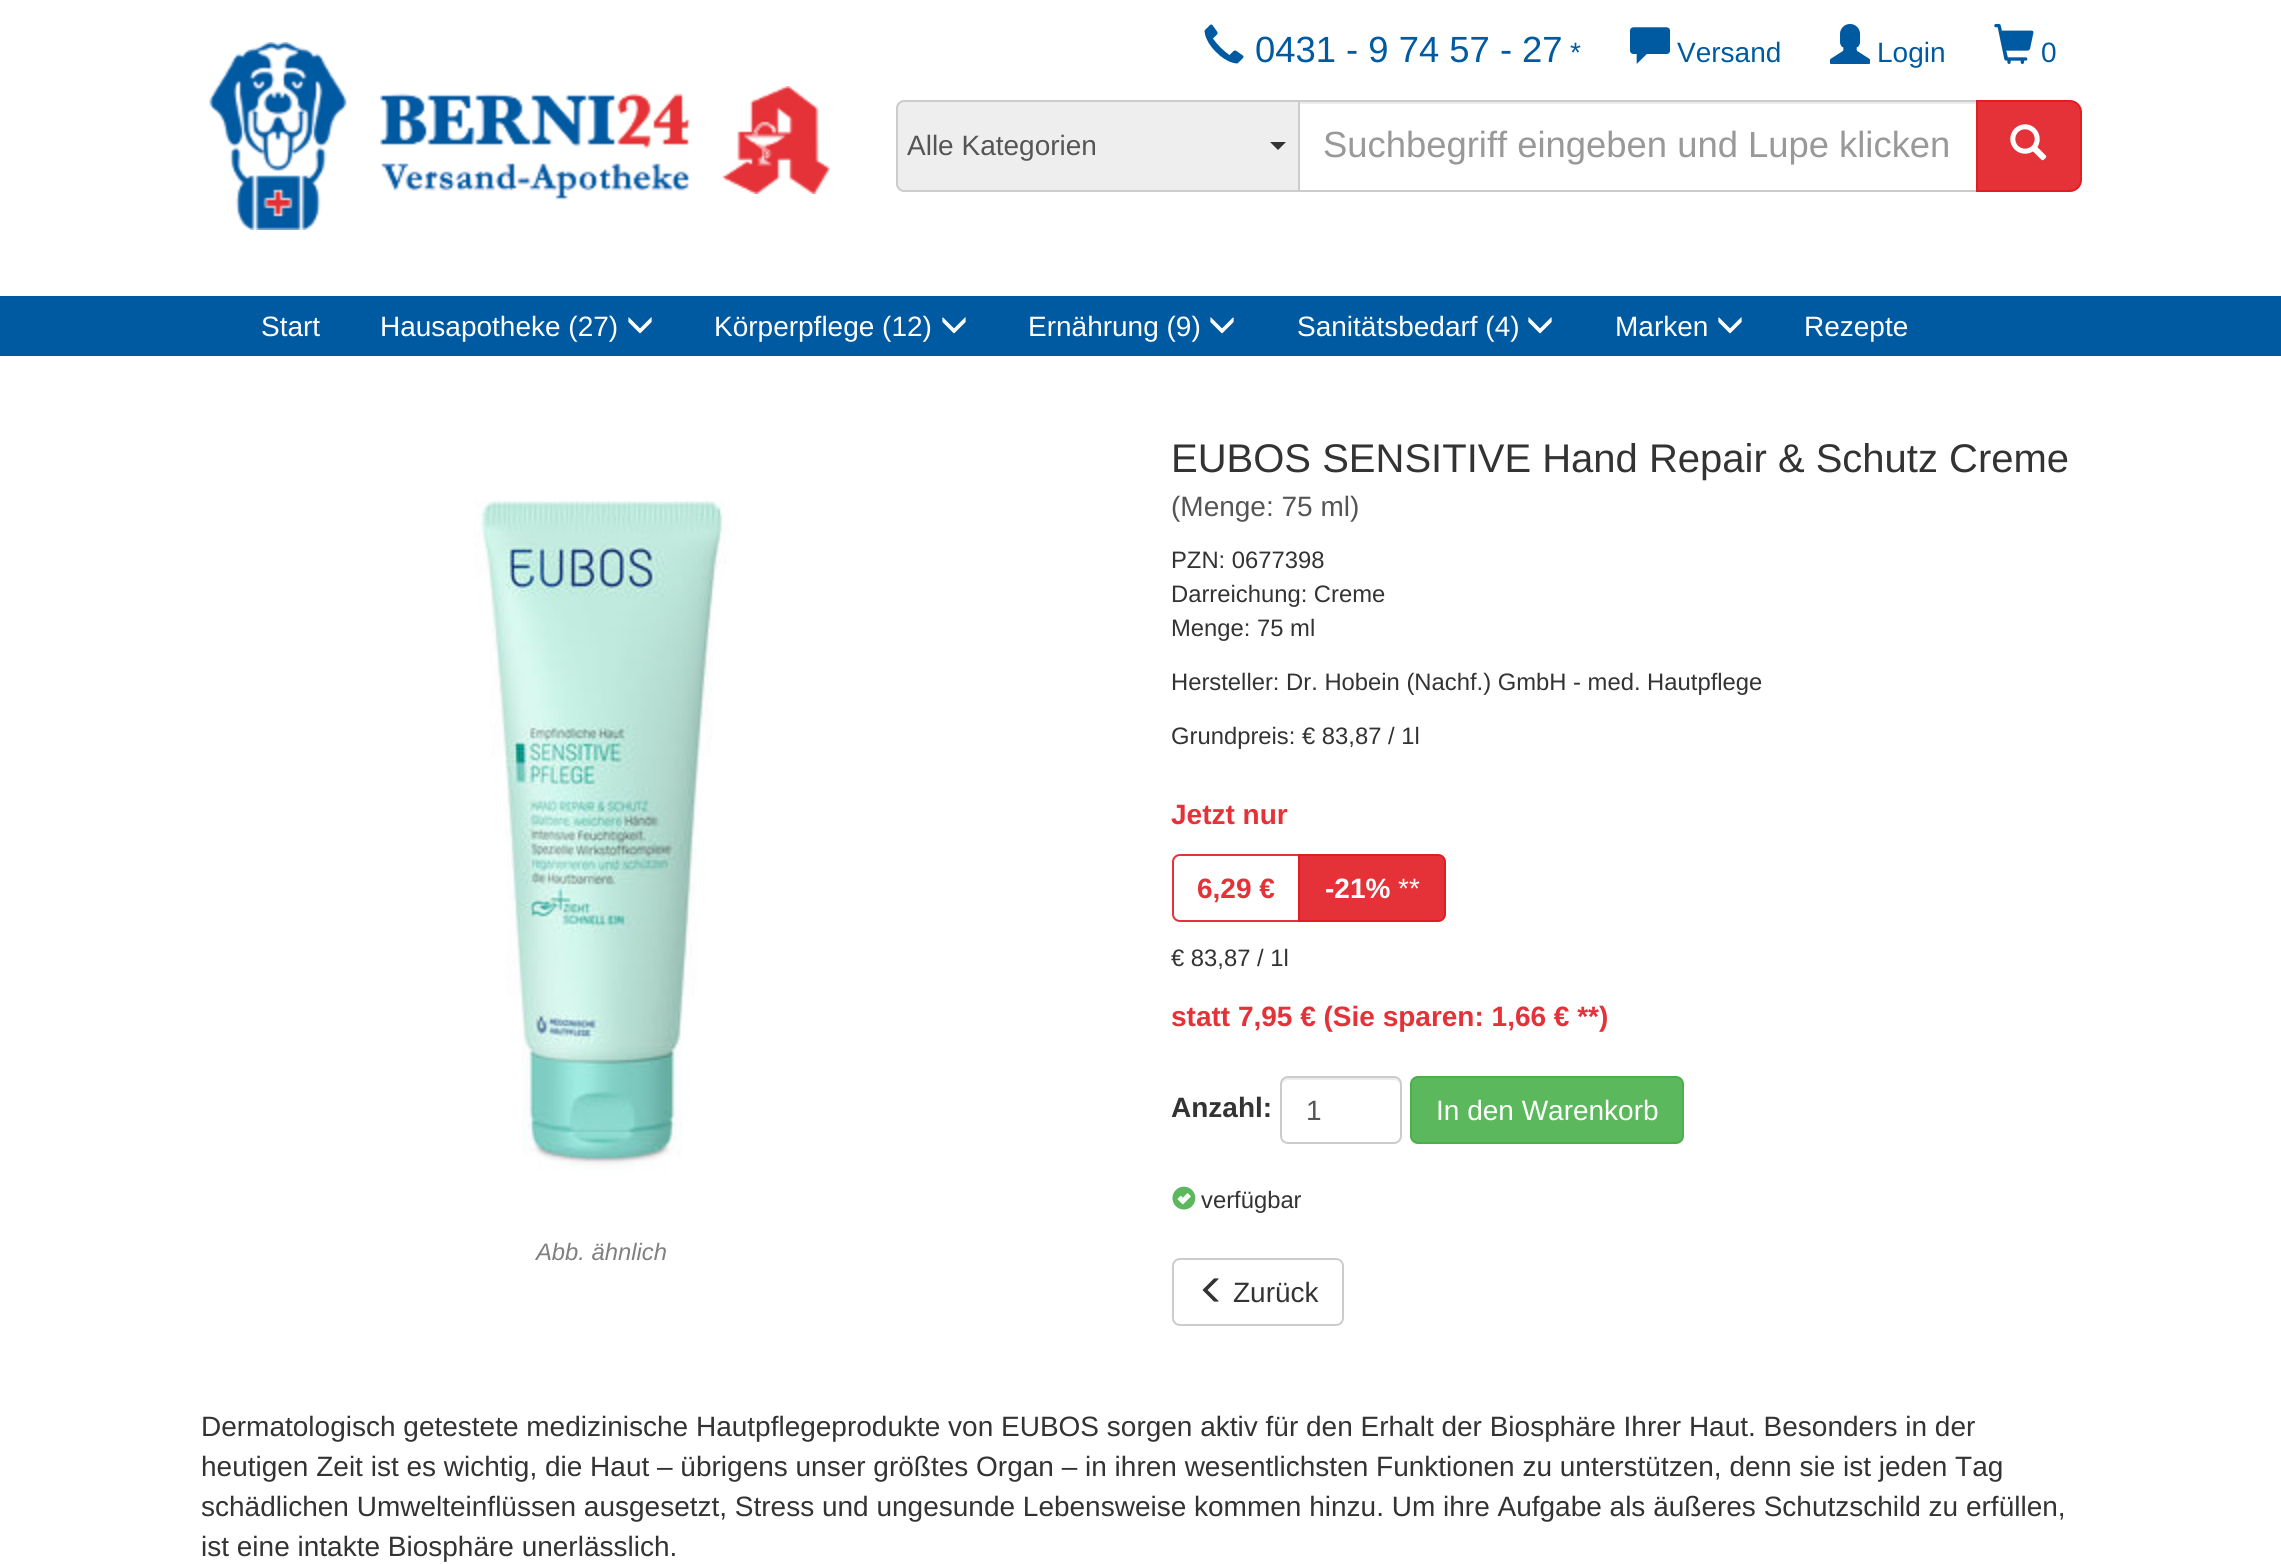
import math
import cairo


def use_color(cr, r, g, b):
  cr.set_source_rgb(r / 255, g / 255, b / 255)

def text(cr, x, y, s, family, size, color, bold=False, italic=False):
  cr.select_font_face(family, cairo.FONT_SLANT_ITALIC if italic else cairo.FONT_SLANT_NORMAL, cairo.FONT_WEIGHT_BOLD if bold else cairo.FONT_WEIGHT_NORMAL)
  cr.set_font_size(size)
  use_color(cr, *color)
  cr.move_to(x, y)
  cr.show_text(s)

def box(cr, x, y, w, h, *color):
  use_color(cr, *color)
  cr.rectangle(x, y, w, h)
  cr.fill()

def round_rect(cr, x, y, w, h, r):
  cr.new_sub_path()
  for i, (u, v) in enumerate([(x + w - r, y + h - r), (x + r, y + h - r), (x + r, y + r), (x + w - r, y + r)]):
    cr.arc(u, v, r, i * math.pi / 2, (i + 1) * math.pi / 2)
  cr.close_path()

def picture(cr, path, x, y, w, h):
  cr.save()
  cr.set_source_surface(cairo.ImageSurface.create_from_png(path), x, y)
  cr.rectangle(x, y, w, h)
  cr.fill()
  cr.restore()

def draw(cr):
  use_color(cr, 255, 255, 255)
  cr.paint()
  box(cr, 0, 296, 2281, 60, 0, 90, 161)
  picture(cr, "img_01.png", 1204, 24, 40, 40)
  picture(cr, "img_02.png", 1630, 27, 41, 37)
  picture(cr, "img_03.png", 1830, 24, 41, 40)
  picture(cr, "img_04.png", 1994, 23, 40, 41)
  picture(cr, "img_05.png", 628, 317, 24, 17)
  picture(cr, "img_05.png", 942, 317, 24, 17)
  picture(cr, "img_05.png", 1210, 317, 24, 17)
  picture(cr, "img_05.png", 1528, 317, 24, 17)
  picture(cr, "img_05.png", 1718, 317, 24, 17)
  picture(cr, "img_06.png", 209, 42, 138, 188)
  picture(cr, "img_07.png", 380, 93, 310, 107)
  picture(cr, "img_08.png", 722, 86, 108, 108)
  use_color(cr, 238, 238, 238)
  cr.new_path()
  cr.move_to(904, 100)
  cr.line_to(1298, 100)
  cr.line_to(1298, 192)
  cr.line_to(904, 192)
  cr.curve_to(899.5, 192, 896, 188.5, 896, 184)
  cr.line_to(896, 108)
  cr.curve_to(896, 103.5, 899.5, 100, 904, 100)
  cr.close_path()
  cr.fill()
  use_color(cr, 204, 204, 204)
  cr.set_fill_rule(cairo.FILL_RULE_EVEN_ODD)
  cr.new_path()
  cr.move_to(904, 100)
  cr.line_to(1298, 100)
  cr.line_to(1298, 192)
  cr.line_to(904, 192)
  cr.curve_to(900, 192, 896, 188, 896, 184)
  cr.line_to(896, 108)
  cr.curve_to(896, 104, 900, 100, 904, 100)
  cr.close_path()
  cr.move_to(904, 102)
  cr.line_to(1298, 102)
  cr.line_to(1298, 190)
  cr.line_to(904, 190)
  cr.curve_to(901, 190, 898, 187, 898, 184)
  cr.line_to(898, 108)
  cr.curve_to(898, 105, 901, 102, 904, 102)
  cr.close_path()
  cr.fill()
  use_color(cr, 51, 51, 51)
  cr.set_fill_rule(cairo.FILL_RULE_WINDING)
  cr.new_path()
  cr.move_to(1270, 142)
  cr.line_to(1286, 142)
  cr.line_to(1278, 150)
  cr.close_path()
  cr.fill()
  box(cr, 1300, 102, 676, 2, 236, 236, 236)
  cr.rectangle(1299, 101, 678, 90)
  use_color(cr, 204, 204, 204)
  cr.stroke()
  use_color(cr, 229, 49, 56)
  cr.new_path()
  cr.move_to(1977, 101)
  cr.line_to(2070, 101)
  cr.curve_to(2076, 101, 2081, 106, 2081, 112)
  cr.line_to(2081, 180)
  cr.curve_to(2081, 186, 2076, 191, 2070, 191)
  cr.line_to(1977, 191)
  cr.close_path()
  cr.fill_preserve()
  use_color(cr, 224, 29, 35)
  cr.stroke()
  picture(cr, "img_09.png", 2010, 124, 37, 37)
  picture(cr, "img_10.png", 474, 500, 256, 672)
  cr.new_path()
  cr.move_to(1180, 855)
  cr.line_to(1299, 855)
  cr.line_to(1299, 921)
  cr.line_to(1180, 921)
  cr.curve_to(1176, 921, 1173, 918, 1173, 914)
  cr.line_to(1173, 862)
  cr.curve_to(1173, 858, 1176, 855, 1180, 855)
  cr.close_path()
  use_color(cr, 229, 49, 56)
  cr.stroke()
  cr.new_path()
  cr.move_to(1299, 855)
  cr.line_to(1438, 855)
  cr.curve_to(1442, 855, 1445, 858, 1445, 862)
  cr.line_to(1445, 914)
  cr.curve_to(1445, 918, 1442, 921, 1438, 921)
  cr.line_to(1299, 921)
  cr.close_path()
  cr.fill_preserve()
  use_color(cr, 224, 29, 35)
  cr.stroke()
  use_color(cr, 236, 236, 236)
  cr.new_path()
  cr.move_to(1288, 1080)
  cr.line_to(1394, 1080)
  cr.curve_to(1397, 1080, 1400, 1083, 1400, 1086)
  cr.line_to(1400, 1084)
  cr.curve_to(1400, 1081, 1397, 1078, 1394, 1078)
  cr.line_to(1288, 1078)
  cr.curve_to(1285, 1078, 1282, 1081, 1282, 1084)
  cr.line_to(1282, 1086)
  cr.curve_to(1282, 1083, 1285, 1080, 1288, 1080)
  cr.close_path()
  cr.fill()
  round_rect(cr, 1281, 1077, 120, 66, 7)
  use_color(cr, 204, 204, 204)
  cr.stroke()
  use_color(cr, 92, 184, 92)
  round_rect(cr, 1411, 1077, 272, 66, 7)
  cr.fill_preserve()
  use_color(cr, 76, 174, 76)
  cr.stroke()
  picture(cr, "img_11.png", 1172, 1186, 24, 24)
  round_rect(cr, 1173, 1259, 170, 66, 7)
  use_color(cr, 204, 204, 204)
  cr.stroke()
  picture(cr, "img_12.png", 1202, 1278, 17, 24)
  text(cr, 1255, 62, "0431 - 9 74 57 - 27", "Liberation Sans", 36.4, (0, 90, 161))
  text(cr, 1570, 62, "*", "Liberation Sans", 28, (0, 90, 161))
  text(cr, 1677, 62, "Versand", "Liberation Sans", 28, (0, 90, 161))
  text(cr, 1877, 62, "Login", "Liberation Sans", 28, (0, 90, 161))
  text(cr, 2041, 62, "0", "Liberation Sans", 28, (0, 90, 161))
  text(cr, 261, 336, "Start", "Liberation Sans", 28, (255, 255, 255))
  text(cr, 380, 336, "Hausapotheke (27)", "Liberation Sans", 28, (255, 255, 255))
  text(cr, 714, 336, "Körperpflege (12)", "Liberation Sans", 28, (255, 255, 255))
  text(cr, 1028, 336, "Ernährung (9)", "Liberation Sans", 28, (255, 255, 255))
  text(cr, 1297, 336, "Sanitätsbedarf (4)", "Liberation Sans", 28, (255, 255, 255))
  text(cr, 1615, 336, "Marken", "Liberation Sans", 28, (255, 255, 255))
  text(cr, 1804, 336, "Rezepte", "Liberation Sans", 28, (255, 255, 255))
  text(cr, 907, 155, "Alle Kategorien", "Liberation Sans", 28, (85, 85, 85))
  text(cr, 1323, 157, "Suchbegriff eingeben und Lupe klicken", "Liberation Sans", 36.4, (153, 153, 153))
  text(cr, 536, 1260, "Abb. ähnlich", "Liberation Sans", 23.8, (128, 128, 128), italic=True)
  text(cr, 1171, 472, "EUBOS SENSITIVE Hand Repair & Schutz Creme", "Liberation Sans", 40, (51, 51, 51))
  text(cr, 1171, 516, "(Menge: 75 ml)", "Liberation Sans", 28, (85, 85, 85))
  text(cr, 1171, 568, "PZN: 0677398", "Liberation Sans", 23.8, (51, 51, 51))
  text(cr, 1171, 602, "Darreichung: Creme", "Liberation Sans", 23.8, (51, 51, 51))
  text(cr, 1171, 636, "Menge: 75 ml", "Liberation Sans", 23.8, (51, 51, 51))
  text(cr, 1171, 690, "Hersteller: Dr. Hobein (Nachf.) GmbH - med. Hautpflege", "Liberation Sans", 23.8, (51, 51, 51))
  text(cr, 1171, 744, "Grundpreis: € 83,87 / 1l", "Liberation Sans", 23.8, (51, 51, 51))
  text(cr, 1171, 824, "Jetzt nur", "Liberation Sans", 28, (229, 49, 56), bold=True)
  text(cr, 1197, 898, "6,29 €", "Liberation Sans", 28, (229, 49, 56), bold=True)
  text(cr, 1325, 898, "-21%", "Liberation Sans", 28, (255, 255, 255), bold=True)
  text(cr, 1398, 898, "**", "Liberation Sans", 28, (255, 255, 255))
  text(cr, 1171, 966, "€ 83,87 / 1l", "Liberation Sans", 23.8, (51, 51, 51))
  text(cr, 1171, 1026, "statt 7,95 € (Sie sparen: 1,66 € **)", "Liberation Sans", 28, (229, 49, 56), bold=True)
  text(cr, 1171, 1117, "Anzahl:", "Liberation Sans", 28, (51, 51, 51), bold=True)
  text(cr, 1306, 1120, "1", "Liberation Sans", 28, (85, 85, 85))
  text(cr, 1436, 1120, "In den Warenkorb", "Liberation Sans", 28, (255, 255, 255))
  text(cr, 1201, 1208, "verfügbar", "Liberation Sans", 23.8, (51, 51, 51))
  text(cr, 1233, 1302, "Zurück", "Liberation Sans", 28, (51, 51, 51))
  text(cr, 201, 1436, "Dermatologisch getestete medizinische Hautpflegeprodukte von EUBOS sorgen aktiv für den Erhalt der Biosphäre Ihrer Haut. Besonders in der", "Liberation Sans", 28, (51, 51, 51))
  text(cr, 201, 1476, "heutigen Zeit ist es wichtig, die Haut – übrigens unser größtes Organ – in ihren wesentlichsten Funktionen zu unterstützen, denn sie ist jeden Tag", "Liberation Sans", 28, (51, 51, 51))
  text(cr, 201, 1516, "schädlichen Umwelteinflüssen ausgesetzt, Stress und ungesunde Lebensweise kommen hinzu. Um ihre Aufgabe als äußeres Schutzschild zu erfüllen,", "Liberation Sans", 28, (51, 51, 51))
  text(cr, 201, 1556, "ist eine intakte Biosphäre unerlässlich.", "Liberation Sans", 28, (51, 51, 51))


surface = cairo.ImageSurface(cairo.FORMAT_RGB24, 2281, 1564)
cr = cairo.Context(surface)
options = cairo.FontOptions()
options.set_hint_metrics(cairo.HINT_METRICS_OFF)
options.set_hint_style(cairo.HINT_STYLE_NONE)
cr.set_font_options(options)
cr.set_miter_limit(4)
draw(cr)
surface.write_to_png("out.png")
